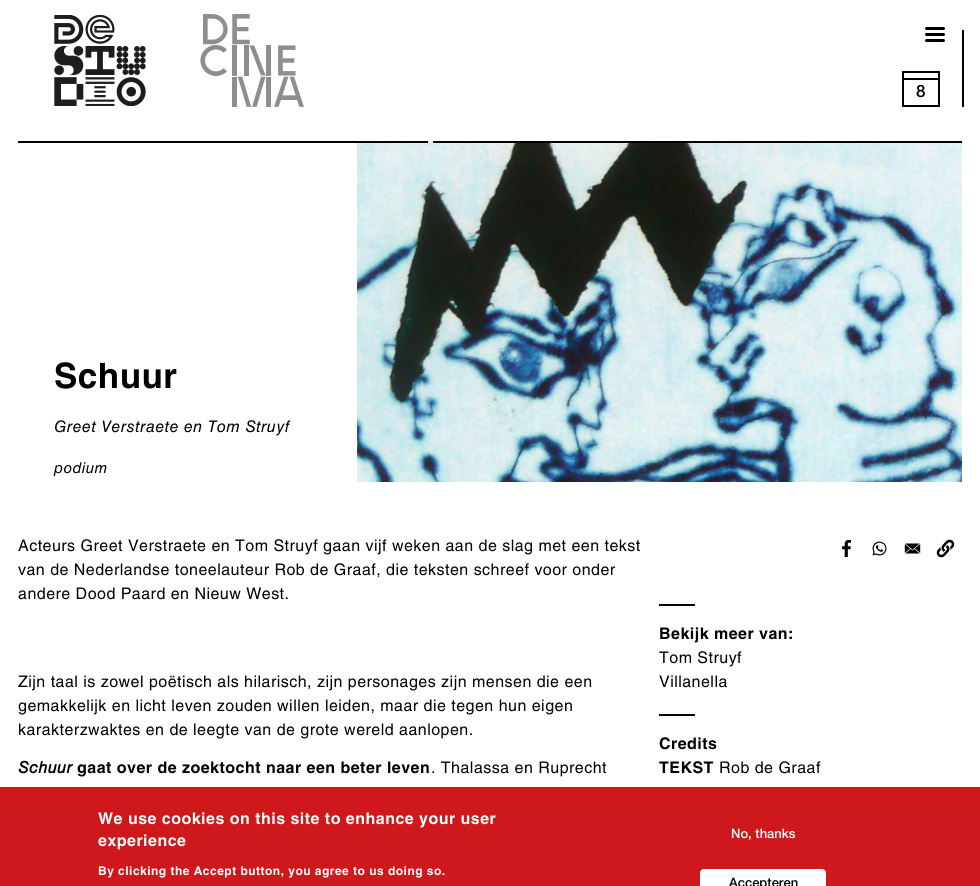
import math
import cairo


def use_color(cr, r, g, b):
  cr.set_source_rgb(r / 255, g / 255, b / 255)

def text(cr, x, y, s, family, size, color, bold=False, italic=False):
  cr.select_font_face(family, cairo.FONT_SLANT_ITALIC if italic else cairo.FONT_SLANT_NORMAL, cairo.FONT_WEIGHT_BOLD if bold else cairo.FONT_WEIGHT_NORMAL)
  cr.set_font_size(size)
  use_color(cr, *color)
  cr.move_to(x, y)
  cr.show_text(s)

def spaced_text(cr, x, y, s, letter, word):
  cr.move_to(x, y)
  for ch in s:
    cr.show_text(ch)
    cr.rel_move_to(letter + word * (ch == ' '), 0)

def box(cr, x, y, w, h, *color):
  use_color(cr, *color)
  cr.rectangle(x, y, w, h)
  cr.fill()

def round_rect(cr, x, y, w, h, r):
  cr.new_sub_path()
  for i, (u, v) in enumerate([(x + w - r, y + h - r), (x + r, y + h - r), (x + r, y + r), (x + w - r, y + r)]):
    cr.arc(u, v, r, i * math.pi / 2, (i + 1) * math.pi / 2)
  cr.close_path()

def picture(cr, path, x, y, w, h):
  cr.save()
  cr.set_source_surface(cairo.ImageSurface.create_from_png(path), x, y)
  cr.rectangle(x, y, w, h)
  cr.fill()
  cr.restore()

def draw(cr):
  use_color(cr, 255, 255, 255)
  cr.paint()
  picture(cr, "img_01.png", 54, 15, 92, 91)
  picture(cr, "img_02.png", 200, 14, 104, 93)
  cr.rectangle(903, 72, 36, 34)
  use_color(cr, 0, 0, 0)
  cr.stroke()
  box(cr, 904, 78, 34, 2, 0, 0, 0)
  round_rect(cr, 925, 27, 20, 3, 1.5)
  cr.fill()
  round_rect(cr, 925, 33, 20, 3, 1.5)
  cr.fill()
  round_rect(cr, 925, 39, 20, 3, 1.5)
  cr.fill()
  box(cr, 962, 30, 2, 77, 0, 0, 0)
  picture(cr, "img_03.png", 357, 141, 605, 341)
  box(cr, 18, 141, 410, 2, 0, 0, 0)
  box(cr, 433, 141, 529, 2, 0, 0, 0)
  picture(cr, "img_04.png", 842, 540, 9, 17)
  picture(cr, "img_05.png", 872, 541, 15, 15)
  picture(cr, "img_06.png", 904, 543, 17, 11)
  picture(cr, "img_07.png", 936, 539, 19, 19)
  box(cr, 659, 604, 36, 2, 0, 0, 0)
  box(cr, 659, 714, 36, 2, 0, 0, 0)
  box(cr, 0, 787, 980, 99, 206, 24, 28)
  use_color(cr, 255, 255, 255)
  round_rect(cr, 699, 868, 128, 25, 5)
  cr.fill_preserve()
  use_color(cr, 206, 24, 28)
  cr.stroke()
  cr.select_font_face("Helvetica Neue Medium")
  cr.set_font_size(17)
  use_color(cr, 0, 0, 0)
  spaced_text(cr, 916, 97, "8", 0.48, 0)
  cr.select_font_face("Helvetica", cairo.FONT_SLANT_NORMAL, cairo.FONT_WEIGHT_BOLD)
  cr.set_font_size(35)
  spaced_text(cr, 54, 388, "Schuur", 0.48, 0)
  cr.select_font_face("Helvetica", cairo.FONT_SLANT_ITALIC)
  cr.set_font_size(16)
  spaced_text(cr, 54, 432, "Greet Verstraete en Tom Struyf", 0.48, 0)
  cr.set_font_size(15)
  spaced_text(cr, 54, 473, "podium", 0.48, 0)
  cr.select_font_face("Helvetica")
  cr.set_font_size(16)
  spaced_text(cr, 18, 551, "Acteurs Greet Verstraete en Tom Struyf gaan vijf weken aan de slag met een tekst", 0.48, 0)
  spaced_text(cr, 18, 575, "van de Nederlandse toneelauteur Rob de Graaf, die teksten schreef voor onder", 0.48, 0)
  spaced_text(cr, 18, 599, "andere Dood Paard en Nieuw West.", 0.48, 0)
  spaced_text(cr, 18, 687, "Zijn taal is zowel poëtisch als hilarisch, zijn personages zijn mensen die een", 0.48, 0)
  spaced_text(cr, 18, 711, "gemakkelijk en licht leven zouden willen leiden, maar die tegen hun eigen", 0.48, 0)
  spaced_text(cr, 18, 735, "karakterzwaktes en de leegte van de grote wereld aanlopen.", 0.48, 0)
  cr.select_font_face("Helvetica", cairo.FONT_SLANT_ITALIC, cairo.FONT_WEIGHT_BOLD)
  spaced_text(cr, 18, 773, "Schuur", 0.48, 0)
  cr.select_font_face("Helvetica", cairo.FONT_SLANT_NORMAL, cairo.FONT_WEIGHT_BOLD)
  spaced_text(cr, 77, 773, "gaat over de zoektocht naar een beter leven", 0.48, 0)
  cr.select_font_face("Helvetica")
  spaced_text(cr, 431, 773, ". Thalassa en Ruprecht", 0.48, 0)
  cr.select_font_face("Helvetica", cairo.FONT_SLANT_NORMAL, cairo.FONT_WEIGHT_BOLD)
  spaced_text(cr, 659, 639, "Bekijk meer van:", 0.48, 0)
  cr.select_font_face("Helvetica")
  spaced_text(cr, 659, 663, "Tom Struyf", 0.48, 0)
  spaced_text(cr, 659, 687, "Villanella", 0.48, 0)
  cr.select_font_face("Helvetica", cairo.FONT_SLANT_NORMAL, cairo.FONT_WEIGHT_BOLD)
  spaced_text(cr, 659, 749, "Credits", 0.48, 0)
  spaced_text(cr, 659, 773, "TEKST", 0.48, 0)
  cr.select_font_face("Helvetica")
  spaced_text(cr, 719, 773, "Rob de Graaf", 0.48, 0)
  cr.select_font_face("Helvetica", cairo.FONT_SLANT_NORMAL, cairo.FONT_WEIGHT_BOLD)
  use_color(cr, 255, 255, 255)
  spaced_text(cr, 98, 824, "We use cookies on this site to enhance your user", 0.48, 0)
  spaced_text(cr, 98, 846, "experience", 0.48, 0)
  cr.set_font_size(12)
  spaced_text(cr, 98, 875, "By clicking the Accept button, you agree to us doing so.", 0.48, 0)
  text(cr, 731, 838, "No, thanks", "Helvetica Neue Medium", 13, (255, 255, 255))
  text(cr, 729, 887, "Accepteren", "Helvetica Neue Medium", 13, (0, 0, 0))


surface = cairo.ImageSurface(cairo.FORMAT_RGB24, 980, 886)
cr = cairo.Context(surface)
options = cairo.FontOptions()
options.set_hint_metrics(cairo.HINT_METRICS_OFF)
options.set_hint_style(cairo.HINT_STYLE_NONE)
cr.set_font_options(options)
cr.set_miter_limit(4)
draw(cr)
surface.write_to_png("out.png")
